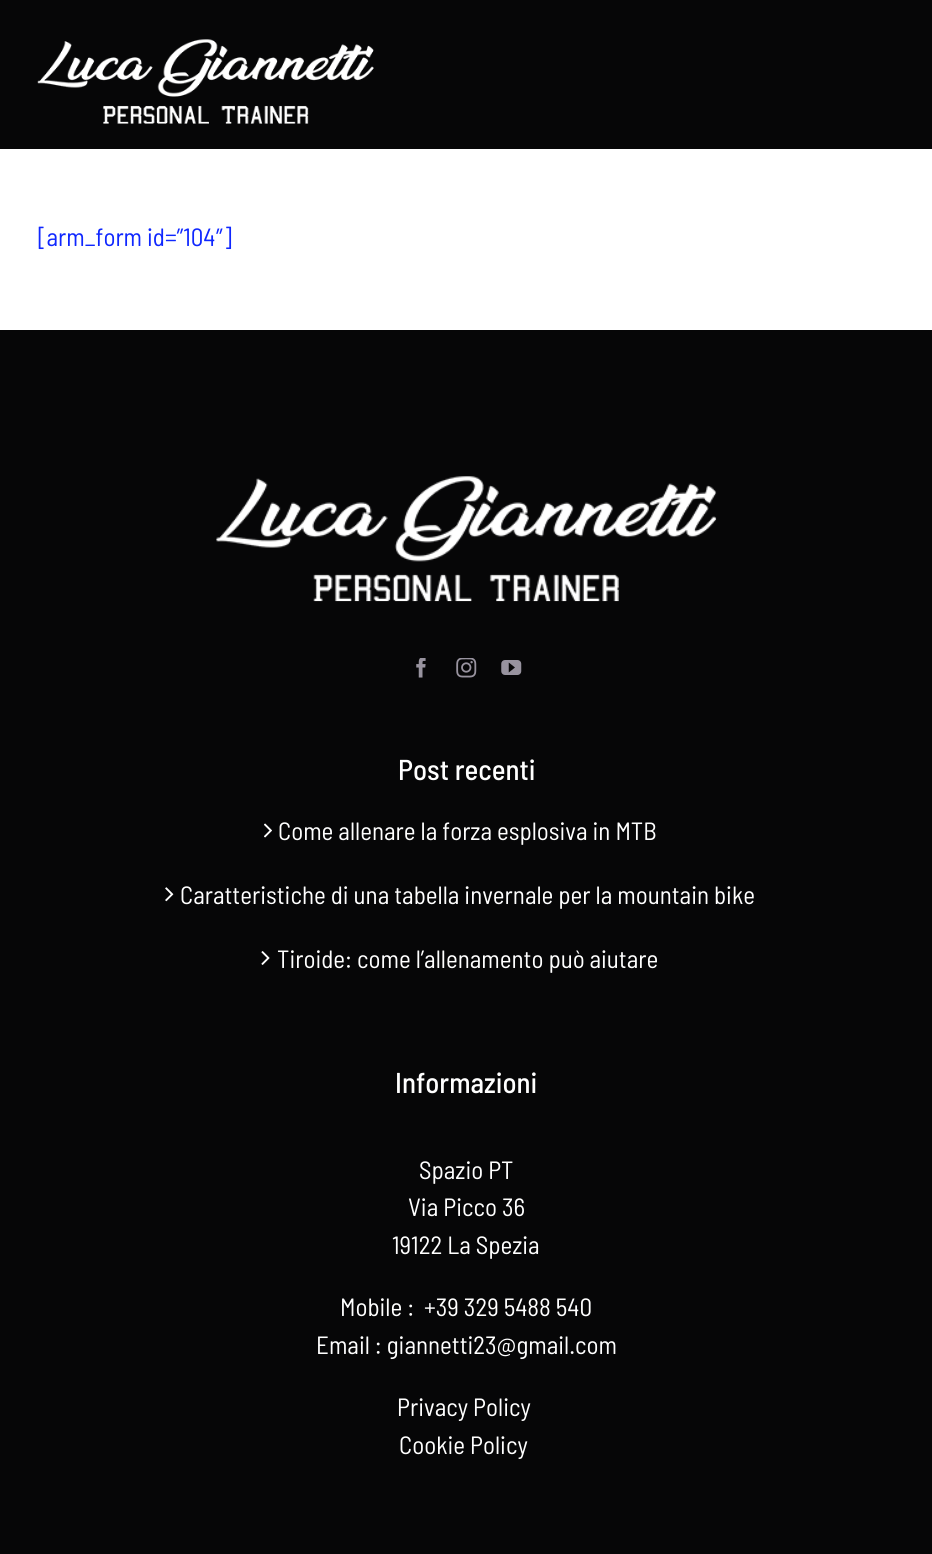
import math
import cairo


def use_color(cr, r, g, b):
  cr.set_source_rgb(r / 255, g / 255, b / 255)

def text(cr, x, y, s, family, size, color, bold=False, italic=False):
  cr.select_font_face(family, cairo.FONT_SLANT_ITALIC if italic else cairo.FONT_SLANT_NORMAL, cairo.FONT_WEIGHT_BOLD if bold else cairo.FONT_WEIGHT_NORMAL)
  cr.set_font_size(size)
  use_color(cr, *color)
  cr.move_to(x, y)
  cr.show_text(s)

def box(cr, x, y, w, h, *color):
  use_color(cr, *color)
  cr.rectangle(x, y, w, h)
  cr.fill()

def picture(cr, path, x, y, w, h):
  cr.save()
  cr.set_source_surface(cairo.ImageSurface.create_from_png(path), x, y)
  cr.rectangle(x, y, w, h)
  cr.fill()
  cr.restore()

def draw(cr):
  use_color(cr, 255, 255, 255)
  cr.paint()
  box(cr, 0, 0, 932, 149, 6, 6, 7)
  picture(cr, "img_01.png", 37, 39, 337, 85)
  box(cr, 0, 330, 932, 1224, 6, 6, 7)
  picture(cr, "img_02.png", 216, 476, 501, 126)
  picture(cr, "img_03.png", 416, 658, 10, 20)
  picture(cr, "img_04.png", 456, 658, 21, 20)
  picture(cr, "img_05.png", 501, 660, 21, 15)
  picture(cr, "img_06.png", 264, 823, 8, 15)
  picture(cr, "img_07.png", 165, 887, 9, 15)
  picture(cr, "img_08.png", 261, 951, 9, 14)
  text(cr, 38, 246, "[arm_form id=”104″]", "Barlow Semi Condensed", 25, (15, 39, 255))
  text(cr, 398, 780, "Post recenti", "Barlow Semi Condensed Medium", 28.75, (255, 255, 255))
  text(cr, 278, 840, "Come allenare la forza esplosiva in MTB", "Barlow Semi Condensed", 25, (255, 255, 255))
  text(cr, 180, 904, "Caratteristiche di una tabella invernale per la mountain bike", "Barlow Semi Condensed", 25, (255, 255, 255))
  text(cr, 277, 968, "Tiroide: come l’allenamento può aiutare", "Barlow Semi Condensed", 25, (255, 255, 255))
  text(cr, 395, 1093, "Informazioni", "Barlow Semi Condensed Medium", 28.75, (255, 255, 255))
  text(cr, 419, 1179, "Spazio PT", "Barlow Semi Condensed", 25, (255, 255, 255))
  text(cr, 408, 1216, "Via Picco 36", "Barlow Semi Condensed", 25, (255, 255, 255))
  text(cr, 392, 1254, "19122 La Spezia", "Barlow Semi Condensed", 25, (255, 255, 255))
  text(cr, 340, 1316, "Mobile :", "Barlow Semi Condensed", 25, (255, 255, 255))
  text(cr, 424, 1316, "+39 329 5488 540", "Barlow Semi Condensed", 25, (255, 255, 255))
  text(cr, 316, 1354, "Email : giannetti23@gmail.com", "Barlow Semi Condensed", 25, (255, 255, 255))
  text(cr, 397, 1416, "Privacy Policy", "Barlow Semi Condensed", 25, (255, 255, 255))
  text(cr, 399, 1454, "Cookie Policy", "Barlow Semi Condensed", 25, (255, 255, 255))


surface = cairo.ImageSurface(cairo.FORMAT_RGB24, 932, 1554)
cr = cairo.Context(surface)
options = cairo.FontOptions()
options.set_hint_metrics(cairo.HINT_METRICS_OFF)
options.set_hint_style(cairo.HINT_STYLE_NONE)
cr.set_font_options(options)
cr.set_miter_limit(4)
draw(cr)
surface.write_to_png("out.png")
